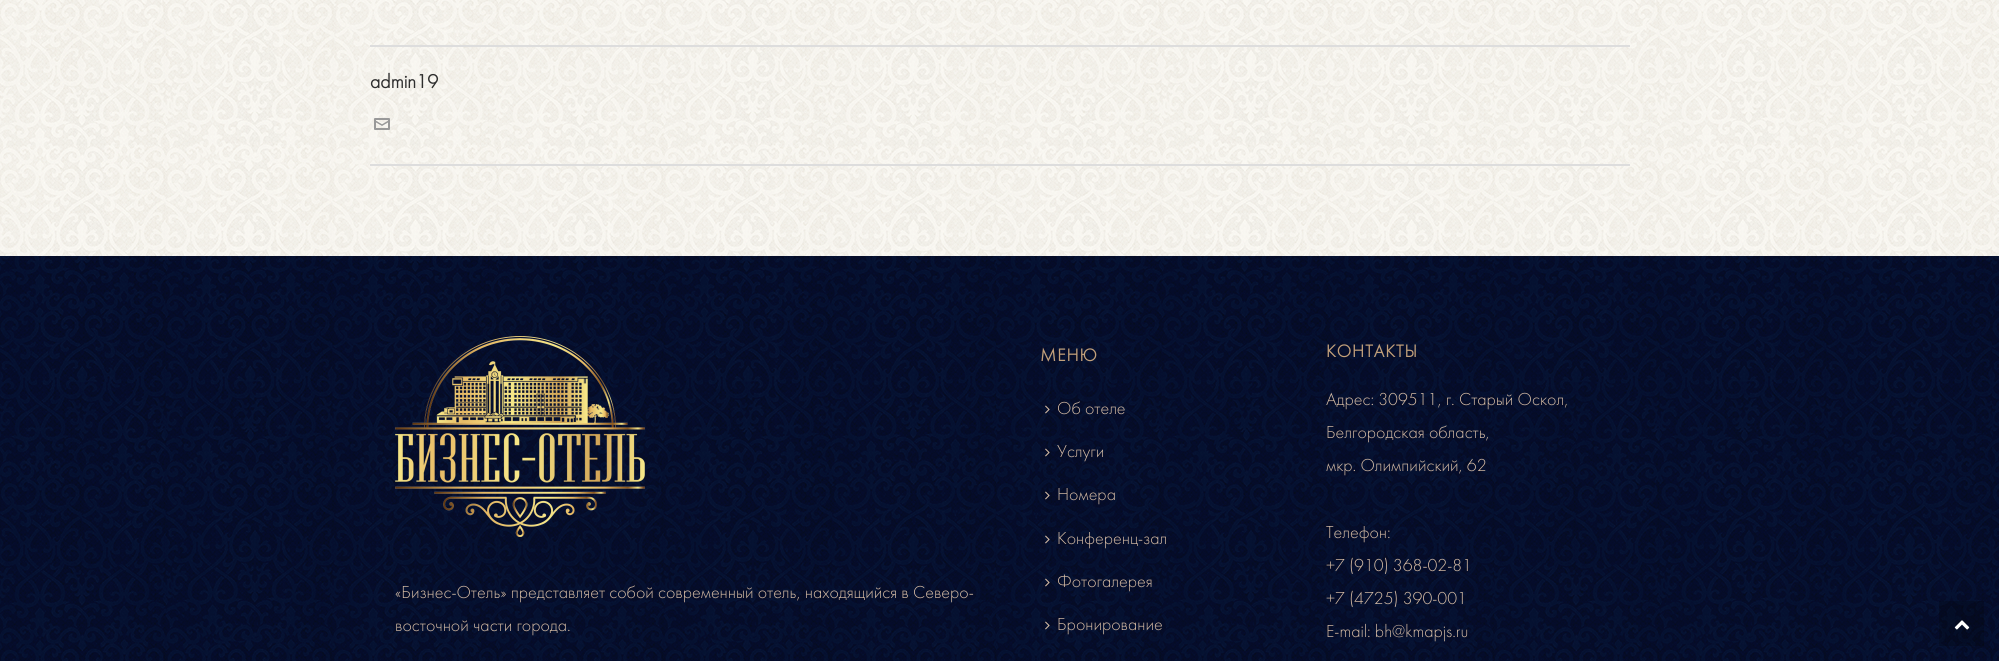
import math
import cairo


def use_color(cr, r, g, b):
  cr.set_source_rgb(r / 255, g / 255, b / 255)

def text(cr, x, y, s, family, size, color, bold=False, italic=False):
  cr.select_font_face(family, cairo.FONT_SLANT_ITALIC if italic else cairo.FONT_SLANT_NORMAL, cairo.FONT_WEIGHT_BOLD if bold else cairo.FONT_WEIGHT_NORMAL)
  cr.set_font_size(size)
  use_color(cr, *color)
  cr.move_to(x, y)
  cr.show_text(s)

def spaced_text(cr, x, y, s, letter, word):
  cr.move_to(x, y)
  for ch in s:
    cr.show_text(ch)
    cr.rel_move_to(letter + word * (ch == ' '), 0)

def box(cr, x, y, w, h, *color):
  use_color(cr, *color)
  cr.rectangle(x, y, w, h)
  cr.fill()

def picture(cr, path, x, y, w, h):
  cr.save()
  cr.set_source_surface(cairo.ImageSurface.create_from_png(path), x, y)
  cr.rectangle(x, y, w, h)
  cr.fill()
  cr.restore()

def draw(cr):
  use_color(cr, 255, 255, 255)
  cr.paint()
  picture(cr, "img_01.png", 0, 0, 1999, 256)
  box(cr, 370, 45, 1260, 2, 221, 221, 221)
  box(cr, 370, 164, 1260, 2, 221, 221, 221)
  picture(cr, "img_02.png", 374, 118, 16, 12)
  picture(cr, "img_03.png", 0, 256, 1999, 405)
  picture(cr, "img_04.png", 395, 336, 250, 201)
  picture(cr, "img_05.png", 1045, 405, 5, 9)
  picture(cr, "img_06.png", 1045, 448, 5, 9)
  picture(cr, "img_07.png", 1045, 491, 5, 9)
  picture(cr, "img_08.png", 1045, 535, 5, 9)
  picture(cr, "img_09.png", 1045, 578, 5, 9)
  picture(cr, "img_10.png", 1045, 621, 5, 9)
  cr.set_source_rgba(0, 0, 0, 0.2)
  cr.rectangle(1939, 601, 45, 45)
  cr.fill()
  picture(cr, "img_11.png", 1954, 620, 16, 10)
  text(cr, 370, 88, "admin19", "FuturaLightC", 20, (46, 46, 46), bold=True)
  text(cr, 395, 598, "«Бизнес-Отель» представляет собой современный отель, находящийся в Северо-", "FuturaLightC Light", 18, (216, 190, 166))
  text(cr, 395, 631, "восточной части города.", "FuturaLightC Light", 18, (216, 190, 166))
  cr.select_font_face("FuturaLightC", cairo.FONT_SLANT_NORMAL, cairo.FONT_WEIGHT_BOLD)
  use_color(cr, 194, 160, 122)
  spaced_text(cr, 1040, 361, "МЕНЮ", 1, 0)
  text(cr, 1057, 414, "Об отеле", "FuturaLightC Light", 18, (216, 190, 166))
  text(cr, 1057, 457, "Услуги", "FuturaLightC Light", 18, (216, 190, 166))
  text(cr, 1057, 500, "Номера", "FuturaLightC Light", 18, (216, 190, 166))
  text(cr, 1057, 544, "Конференц-зал", "FuturaLightC Light", 18, (216, 190, 166))
  text(cr, 1057, 587, "Фотогалерея", "FuturaLightC Light", 18, (216, 190, 166))
  text(cr, 1057, 630, "Бронирование", "FuturaLightC Light", 18, (216, 190, 166))
  cr.select_font_face("FuturaLightC", cairo.FONT_SLANT_NORMAL, cairo.FONT_WEIGHT_BOLD)
  use_color(cr, 194, 160, 122)
  spaced_text(cr, 1326, 357, "КОНТАКТЫ", 1, 0)
  text(cr, 1326, 405, "Адрес: 309511, г. Старый Оскол,", "FuturaLightC Light", 18, (216, 190, 166))
  text(cr, 1326, 438, "Белгородская область,", "FuturaLightC Light", 18, (216, 190, 166))
  text(cr, 1326, 471, "мкр. Олимпийский, 62", "FuturaLightC Light", 18, (216, 190, 166))
  text(cr, 1326, 538, "Телефон:", "FuturaLightC Light", 18, (216, 190, 166))
  text(cr, 1326, 571, "+7 (910) 368-02-81", "FuturaLightC Light", 18, (216, 190, 166))
  text(cr, 1326, 604, "+7 (4725) 390-001", "FuturaLightC Light", 18, (216, 190, 166))
  text(cr, 1326, 637, "E-mail: bh@kmapjs.ru", "FuturaLightC Light", 18, (216, 190, 166))


surface = cairo.ImageSurface(cairo.FORMAT_RGB24, 1999, 661)
cr = cairo.Context(surface)
options = cairo.FontOptions()
options.set_hint_metrics(cairo.HINT_METRICS_OFF)
options.set_hint_style(cairo.HINT_STYLE_NONE)
cr.set_font_options(options)
cr.set_miter_limit(4)
draw(cr)
surface.write_to_png("out.png")
